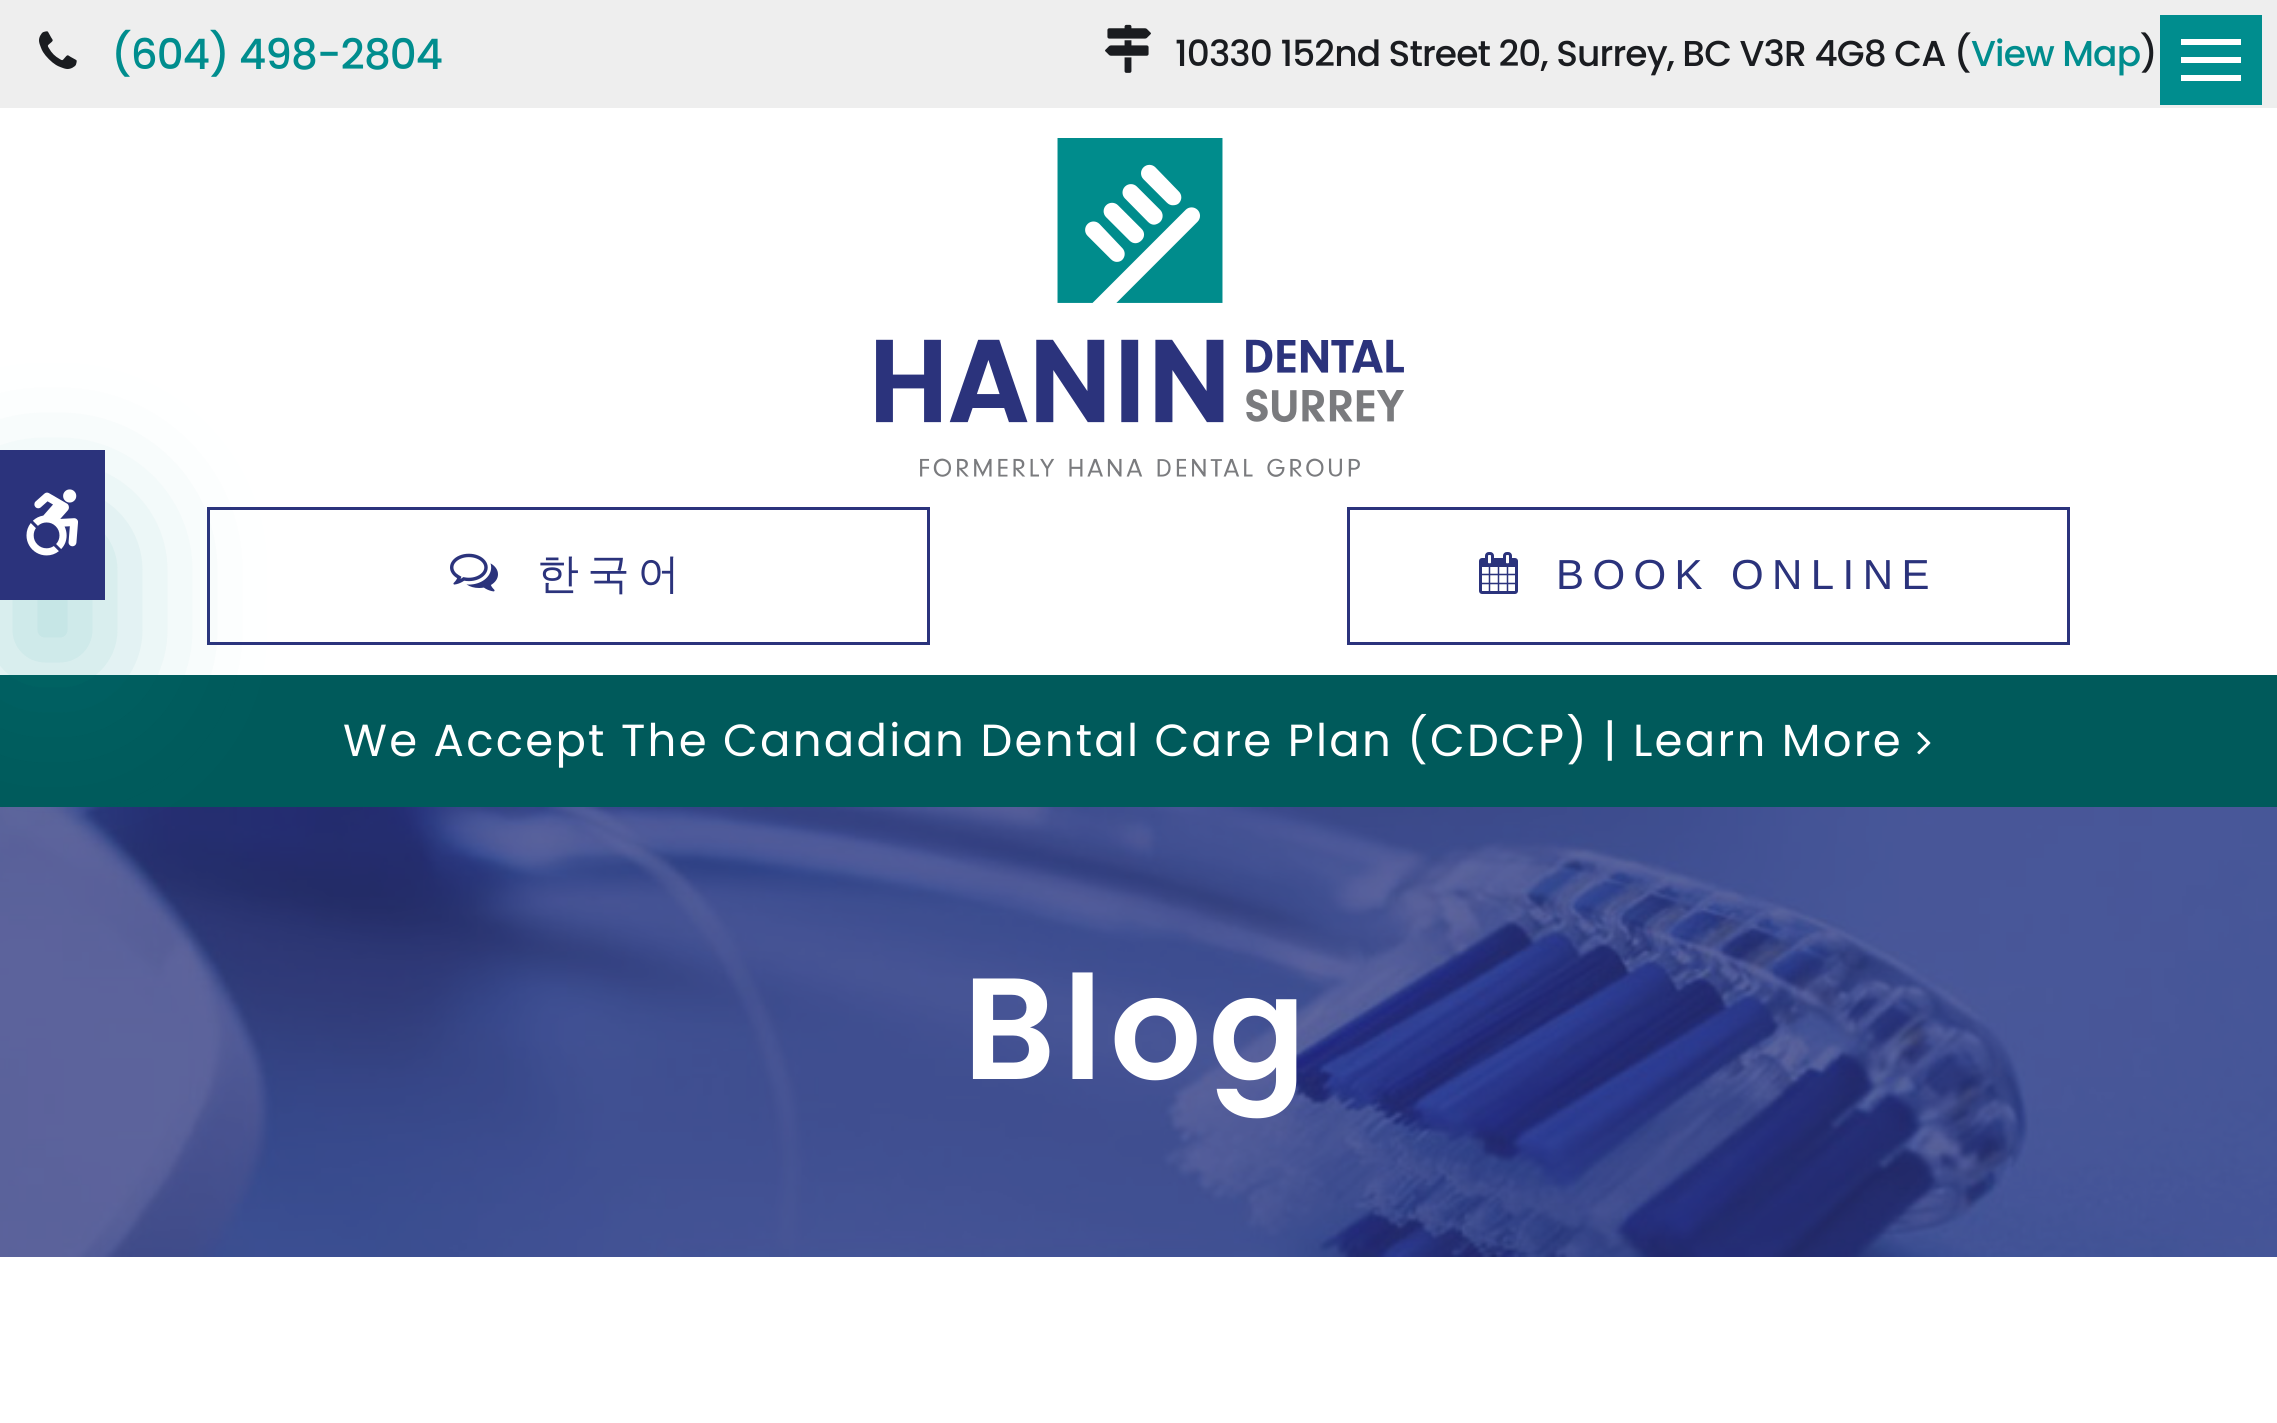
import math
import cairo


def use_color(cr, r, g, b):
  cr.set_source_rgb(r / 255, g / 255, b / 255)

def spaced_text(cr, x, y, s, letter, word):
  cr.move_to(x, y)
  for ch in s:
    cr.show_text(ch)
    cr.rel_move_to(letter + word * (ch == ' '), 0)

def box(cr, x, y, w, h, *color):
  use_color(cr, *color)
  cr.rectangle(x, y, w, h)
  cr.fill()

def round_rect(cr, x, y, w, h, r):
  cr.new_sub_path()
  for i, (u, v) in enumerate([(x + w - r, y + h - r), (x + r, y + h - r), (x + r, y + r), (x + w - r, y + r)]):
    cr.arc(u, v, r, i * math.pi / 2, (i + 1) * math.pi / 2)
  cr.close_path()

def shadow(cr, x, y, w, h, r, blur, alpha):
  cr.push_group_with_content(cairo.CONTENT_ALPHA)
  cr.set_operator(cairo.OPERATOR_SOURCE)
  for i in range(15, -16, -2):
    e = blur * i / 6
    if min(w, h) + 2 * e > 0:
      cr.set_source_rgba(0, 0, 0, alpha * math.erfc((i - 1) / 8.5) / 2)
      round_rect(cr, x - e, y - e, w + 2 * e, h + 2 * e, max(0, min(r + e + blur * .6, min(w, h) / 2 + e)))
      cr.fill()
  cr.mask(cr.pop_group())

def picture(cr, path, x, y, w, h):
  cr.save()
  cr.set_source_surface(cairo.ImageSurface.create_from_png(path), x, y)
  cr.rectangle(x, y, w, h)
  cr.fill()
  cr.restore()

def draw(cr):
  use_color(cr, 255, 255, 255)
  cr.paint()
  box(cr, 0, 0, 2277, 108, 238, 238, 238)
  picture(cr, "img_01.png", 39, 31, 38, 38)
  picture(cr, "img_02.png", 1105, 24, 46, 49)
  picture(cr, "img_03.png", 876, 138, 528, 339)
  cr.rectangle(208.5, 508.5, 720, 135)
  use_color(cr, 43, 51, 124)
  cr.set_line_width(3)
  cr.stroke()
  picture(cr, "img_04.png", 450, 553, 48, 39)
  cr.rectangle(1348.5, 508.5, 720, 135)
  cr.stroke()
  picture(cr, "img_05.png", 1479, 552, 39, 42)
  box(cr, 0, 675, 2277, 132, 0, 90, 91)
  picture(cr, "img_08.png", 0, 807, 2277, 450)
  use_color(cr, 0, 141, 142)
  shadow(cr, 0, 525, 105, 150, 0, 75, 0.3)
  box(cr, 0, 450, 105, 150, 43, 51, 124)
  picture(cr, "img_06.png", 26, 489, 52, 67)
  picture(cr, "img_07.png", 1917, 731, 14, 24)
  box(cr, 2160, 15, 102, 90, 0, 141, 142)
  box(cr, 2181, 39, 60, 6, 255, 255, 255)
  box(cr, 2181, 57, 60, 6, 255, 255, 255)
  box(cr, 2181, 75, 60, 6, 255, 255, 255)
  cr.select_font_face("Poppins Medium")
  cr.set_font_size(42)
  use_color(cr, 0, 141, 142)
  spaced_text(cr, 111, 69, "(604) 498-2804", -0.9, 0)
  cr.set_font_size(36)
  use_color(cr, 26, 28, 32)
  spaced_text(cr, 1175, 66, "10330 152nd Street 20, Surrey, BC V3R 4G8 CA (", -0.9, 0)
  use_color(cr, 0, 141, 142)
  spaced_text(cr, 1971, 66, "View Map", -0.9, 0)
  use_color(cr, 26, 28, 32)
  spaced_text(cr, 2140, 66, ")", -0.9, 0)
  cr.select_font_face("WenQuanYi Zen Hei Medium")
  cr.set_font_size(42)
  use_color(cr, 43, 51, 124)
  spaced_text(cr, 537, 588, "한국어", 8.4, 0)
  cr.select_font_face("Liberation Sans")
  spaced_text(cr, 1556, 589, "BOOK ONLINE", 8.4, 0)
  cr.select_font_face("Poppins")
  cr.set_font_size(45)
  use_color(cr, 255, 255, 255)
  spaced_text(cr, 343, 756, "We Accept The Canadian Dental Care Plan (CDCP) | Learn More", 2.25, 0)
  cr.select_font_face("Poppins SemiBold")
  cr.set_font_size(144)
  spaced_text(cr, 963, 1079, "Blog", 7, 0)


surface = cairo.ImageSurface(cairo.FORMAT_RGB24, 2277, 1423)
cr = cairo.Context(surface)
options = cairo.FontOptions()
options.set_hint_metrics(cairo.HINT_METRICS_OFF)
options.set_hint_style(cairo.HINT_STYLE_NONE)
cr.set_font_options(options)
cr.set_miter_limit(4)
draw(cr)
surface.write_to_png("out.png")
